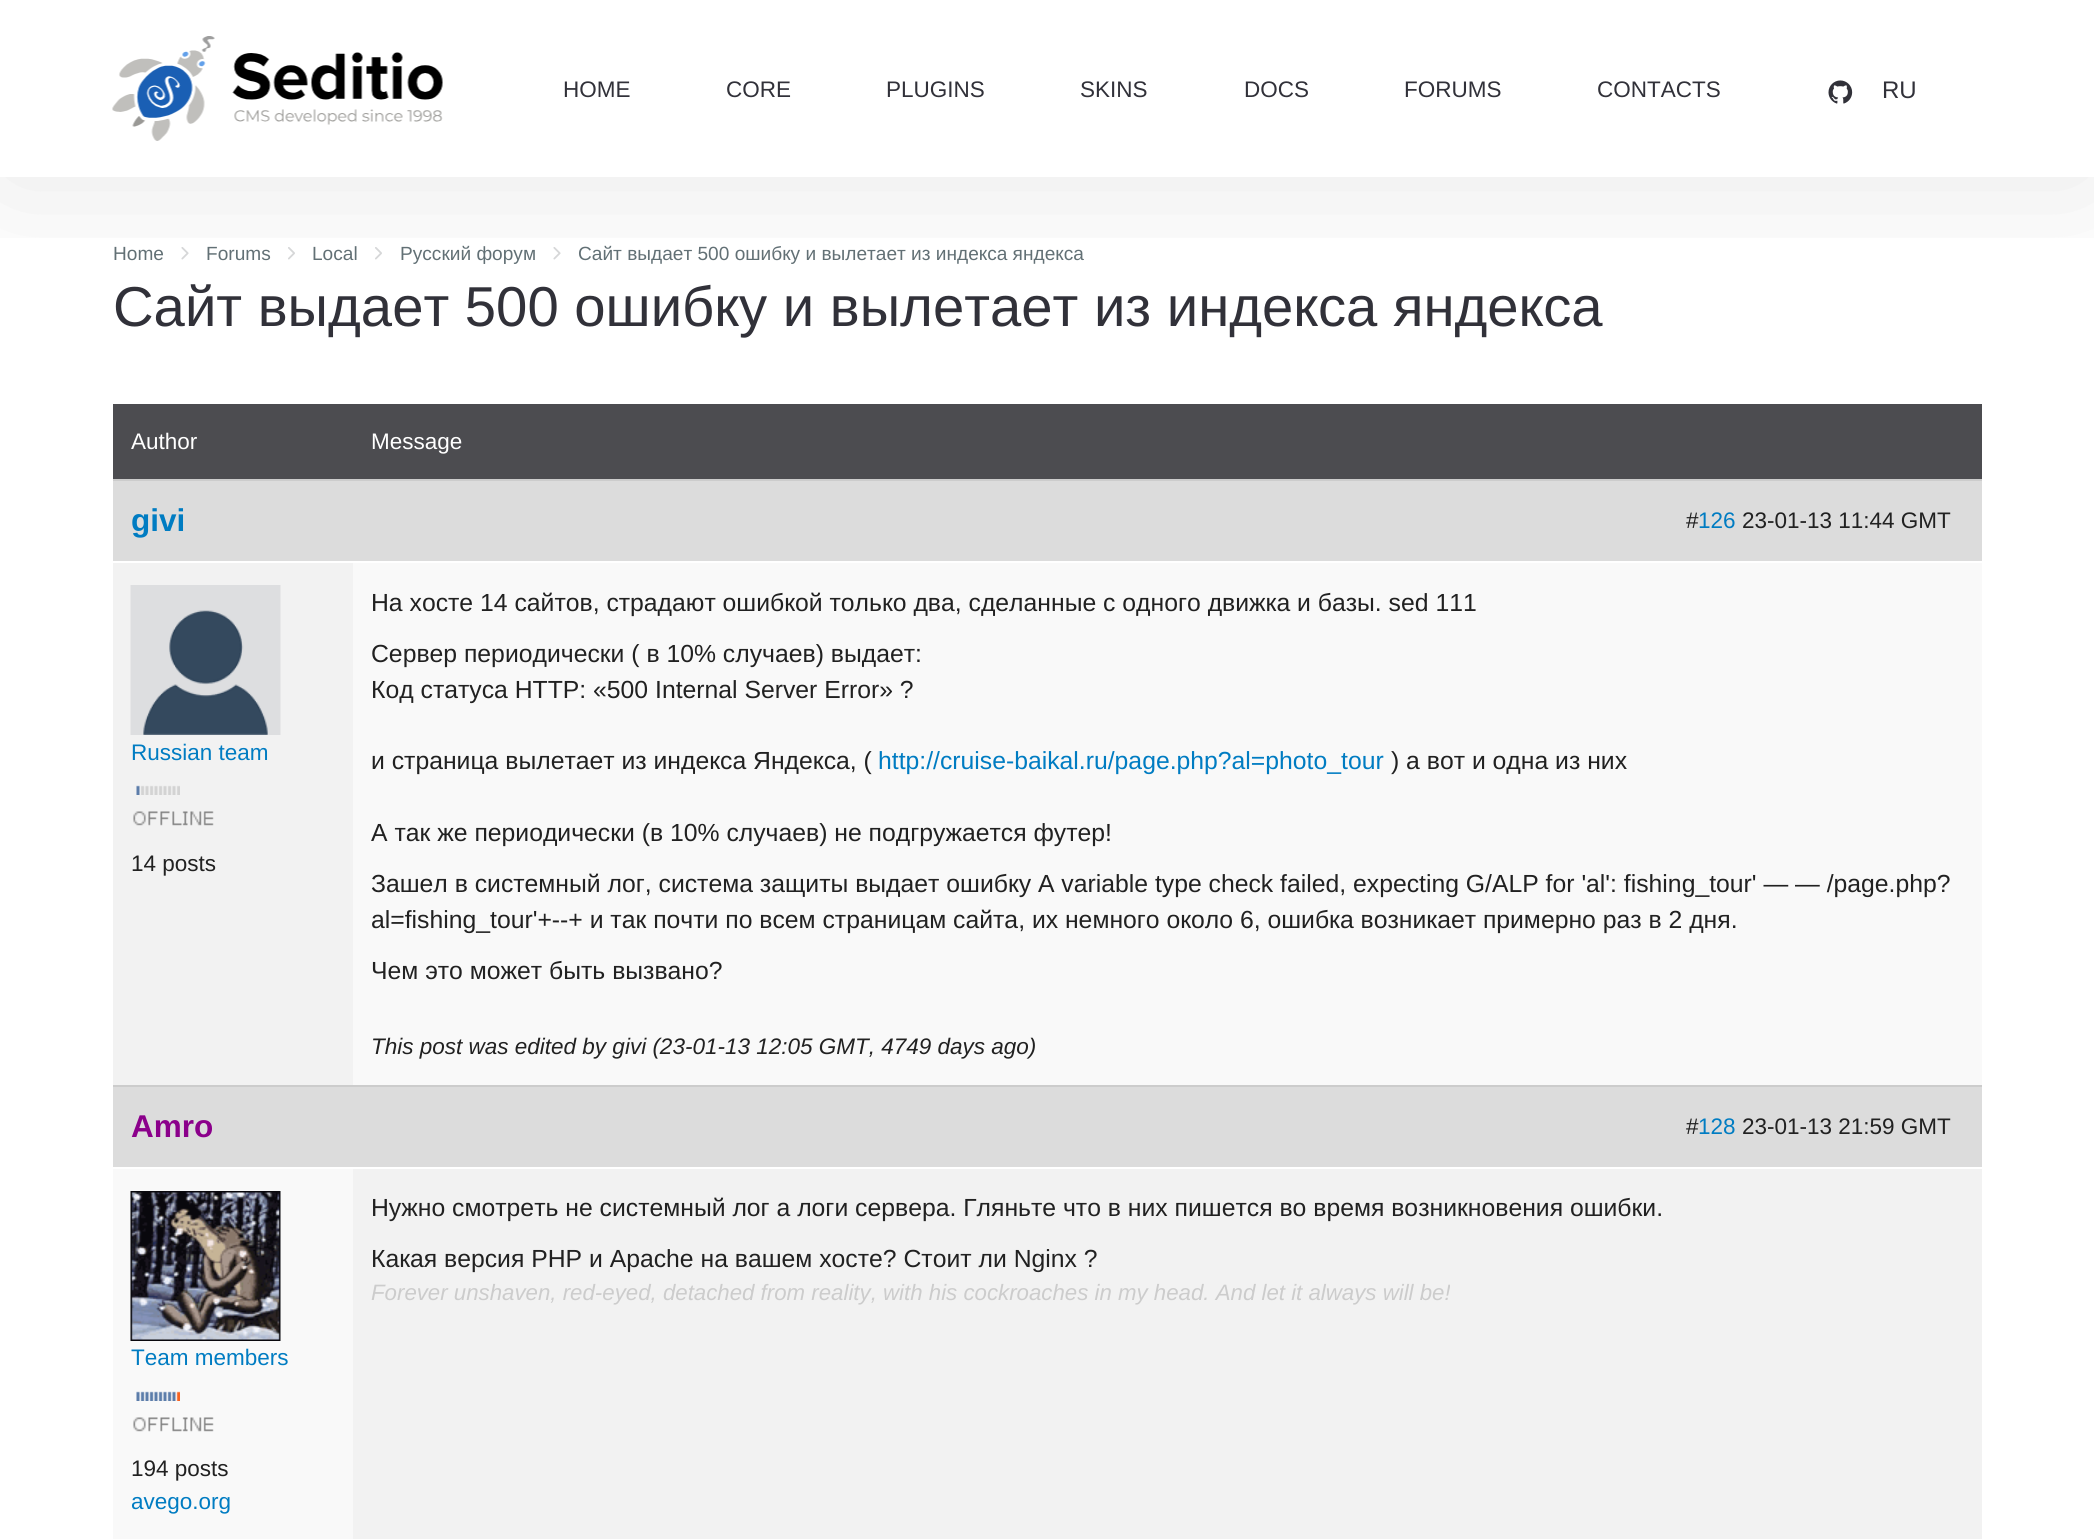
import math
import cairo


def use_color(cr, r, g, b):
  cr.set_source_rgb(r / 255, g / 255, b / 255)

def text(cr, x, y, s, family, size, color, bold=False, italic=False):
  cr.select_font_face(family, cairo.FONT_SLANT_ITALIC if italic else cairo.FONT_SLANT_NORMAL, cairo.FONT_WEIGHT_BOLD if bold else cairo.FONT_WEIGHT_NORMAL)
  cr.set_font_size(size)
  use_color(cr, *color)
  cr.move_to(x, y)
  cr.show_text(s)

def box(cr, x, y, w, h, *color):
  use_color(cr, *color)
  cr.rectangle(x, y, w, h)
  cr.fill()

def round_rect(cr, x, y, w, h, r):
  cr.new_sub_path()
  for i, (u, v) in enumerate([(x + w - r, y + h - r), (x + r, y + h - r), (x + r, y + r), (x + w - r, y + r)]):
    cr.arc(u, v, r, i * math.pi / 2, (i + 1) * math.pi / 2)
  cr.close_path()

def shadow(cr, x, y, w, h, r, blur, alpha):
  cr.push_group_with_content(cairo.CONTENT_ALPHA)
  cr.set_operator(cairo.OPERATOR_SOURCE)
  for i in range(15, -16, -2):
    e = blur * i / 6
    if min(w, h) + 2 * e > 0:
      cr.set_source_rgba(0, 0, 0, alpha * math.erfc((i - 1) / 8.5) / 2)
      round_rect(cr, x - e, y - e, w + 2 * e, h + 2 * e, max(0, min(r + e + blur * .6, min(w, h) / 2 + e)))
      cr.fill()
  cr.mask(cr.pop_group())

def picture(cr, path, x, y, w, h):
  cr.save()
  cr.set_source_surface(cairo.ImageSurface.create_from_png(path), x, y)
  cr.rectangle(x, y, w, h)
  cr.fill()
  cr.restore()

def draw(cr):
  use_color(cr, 255, 255, 255)
  cr.paint()
  picture(cr, "img_03.png", 181, 247, 8, 13)
  picture(cr, "img_04.png", 288, 247, 7, 13)
  picture(cr, "img_04.png", 375, 247, 7, 13)
  picture(cr, "img_03.png", 553, 247, 8, 13)
  cr.save()
  cr.rectangle(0, 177, 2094, 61)
  cr.clip()
  use_color(cr, 0, 0, 0)
  shadow(cr, 0, 3, 2094, 177, 0, 69, 0.1)
  cr.restore()
  picture(cr, "img_01.png", 112, 36, 331, 105)
  picture(cr, "img_02.png", 1828, 80, 25, 24)
  box(cr, 113, 404, 1869, 75, 76, 76, 80)
  box(cr, 113, 481, 1869, 80, 220, 220, 220)
  box(cr, 113, 479, 1869, 2, 204, 204, 204)
  box(cr, 113, 563, 240, 522, 242, 242, 242)
  picture(cr, "img_05.png", 130, 585, 151, 150)
  picture(cr, "img_06.png", 136, 785, 44, 10)
  picture(cr, "img_07.png", 133, 811, 81, 15)
  box(cr, 353, 563, 1629, 522, 249, 249, 249)
  box(cr, 113, 1087, 1869, 80, 220, 220, 220)
  box(cr, 113, 1085, 1869, 2, 204, 204, 204)
  box(cr, 353, 1169, 1629, 370, 242, 242, 242)
  box(cr, 113, 1169, 240, 370, 249, 249, 249)
  picture(cr, "img_08.png", 130, 1191, 151, 150)
  picture(cr, "img_09.png", 136, 1391, 44, 10)
  picture(cr, "img_10.png", 133, 1417, 81, 15)
  text(cr, 563, 97, "HOME", "Liberation Sans", 22.5, (49, 49, 57))
  text(cr, 726, 97, "CORE", "Liberation Sans", 22.5, (49, 49, 57))
  text(cr, 886, 97, "PLUGINS", "Liberation Sans", 22.5, (49, 49, 57))
  text(cr, 1080, 97, "SKINS", "Liberation Sans", 22.5, (49, 49, 57))
  text(cr, 1244, 97, "DOCS", "Liberation Sans", 22.5, (49, 49, 57))
  text(cr, 1404, 97, "FORUMS", "Liberation Sans", 22.5, (49, 49, 57))
  text(cr, 1597, 97, "CONTACTS", "Liberation Sans", 22.5, (49, 49, 57))
  text(cr, 1882, 98, "RU", "Liberation Sans", 24, (49, 49, 57))
  text(cr, 113, 260, "Home", "Liberation Sans", 19.1, (98, 112, 117))
  text(cr, 206, 260, "Forums", "Liberation Sans", 19.1, (98, 112, 117))
  text(cr, 312, 260, "Local", "Liberation Sans", 19.1, (98, 112, 117))
  text(cr, 400, 260, "Русский форум", "Liberation Sans", 19.1, (98, 112, 117))
  text(cr, 578, 260, "Сайт выдает 500 ошибку и вылетает из индекса яндекса", "Liberation Sans", 19.1, (98, 112, 117))
  text(cr, 113, 326, "Сайт выдает 500 ошибку и вылетает из индекса яндекса", "Liberation Sans", 56.25, (49, 49, 57))
  text(cr, 131, 449, "Author", "Liberation Sans", 22.5, (255, 255, 255))
  text(cr, 371, 449, "Message", "Liberation Sans", 22.5, (255, 255, 255))
  text(cr, 131, 531, "givi", "Liberation Sans", 31.5, (0, 124, 194), bold=True)
  text(cr, 1686, 528, "#", "Liberation Sans", 22.5, (33, 33, 33))
  text(cr, 1698, 528, "126", "Liberation Sans", 22.5, (0, 124, 194))
  text(cr, 1742, 528, "23-01-13 11:44 GMT", "Liberation Sans", 22.5, (33, 33, 33))
  text(cr, 131, 760, "Russian team", "Liberation Sans", 22.5, (0, 124, 194))
  text(cr, 131, 871, "14 posts", "Liberation Sans", 22.5, (33, 33, 33))
  text(cr, 371, 611, "На хосте 14 сайтов, страдают ошибкой только два, сделанные с одного движка и базы. sed 111", "Liberation Sans", 24.75, (33, 33, 33))
  text(cr, 371, 662, "Сервер периодически ( в 10% случаев) выдает:", "Liberation Sans", 24.75, (33, 33, 33))
  text(cr, 371, 698, "Код статуса HTTP: «500 Internal Server Error» ?", "Liberation Sans", 24.75, (33, 33, 33))
  text(cr, 371, 769, "и страница вылетает из индекса Яндекса, (", "Liberation Sans", 24.75, (33, 33, 33))
  text(cr, 878, 769, "http://cruise-baikal.ru/page.php?al=photo_tour", "Liberation Sans", 24.75, (0, 124, 194))
  text(cr, 1391, 769, ") а вот и одна из них", "Liberation Sans", 24.75, (33, 33, 33))
  text(cr, 371, 841, "А так же периодически (в 10% случаев) не подгружается футер!", "Liberation Sans", 24.75, (33, 33, 33))
  text(cr, 371, 892, "Зашел в системный лог, система защиты выдает ошибку A variable type check failed, expecting G/ALP for 'al': fishing_tour' — — /page.php?", "Liberation Sans", 24.75, (33, 33, 33))
  text(cr, 371, 928, "al=fishing_tour'+--+ и так почти по всем страницам сайта, их немного около 6, ошибка возникает примерно раз в 2 дня.", "Liberation Sans", 24.75, (33, 33, 33))
  text(cr, 371, 979, "Чем это может быть вызвано?", "Liberation Sans", 24.75, (33, 33, 33))
  text(cr, 371, 1054, "This post was edited by givi (23-01-13 12:05 GMT, 4749 days ago)", "Liberation Sans", 22.5, (33, 33, 33), italic=True)
  text(cr, 131, 1137, "Amro", "Liberation Sans", 31.5, (139, 0, 139), bold=True)
  text(cr, 1686, 1134, "#", "Liberation Sans", 22.5, (33, 33, 33))
  text(cr, 1698, 1134, "128", "Liberation Sans", 22.5, (0, 124, 194))
  text(cr, 1742, 1134, "23-01-13 21:59 GMT", "Liberation Sans", 22.5, (33, 33, 33))
  text(cr, 371, 1216, "Нужно смотреть не системный лог а логи сервера. Гляньте что в них пишется во время возникновения ошибки.", "Liberation Sans", 24.75, (33, 33, 33))
  text(cr, 371, 1267, "Какая версия PHP и Apache на вашем хосте? Стоит ли Nginx ?", "Liberation Sans", 24.75, (33, 33, 33))
  text(cr, 371, 1300, "Forever unshaven, red-eyed, detached from reality, with his cockroaches in my head. And let it always will be!", "Liberation Sans", 22.25, (204, 204, 204), italic=True)
  text(cr, 131, 1365, "Team members", "Liberation Sans", 22.5, (0, 124, 194))
  text(cr, 131, 1476, "194 posts", "Liberation Sans", 22.5, (33, 33, 33))
  text(cr, 131, 1509, "avego.org", "Liberation Sans", 22.5, (0, 124, 194))


surface = cairo.ImageSurface(cairo.FORMAT_RGB24, 2094, 1539)
cr = cairo.Context(surface)
options = cairo.FontOptions()
options.set_hint_metrics(cairo.HINT_METRICS_OFF)
options.set_hint_style(cairo.HINT_STYLE_NONE)
cr.set_font_options(options)
cr.set_miter_limit(4)
draw(cr)
surface.write_to_png("out.png")
